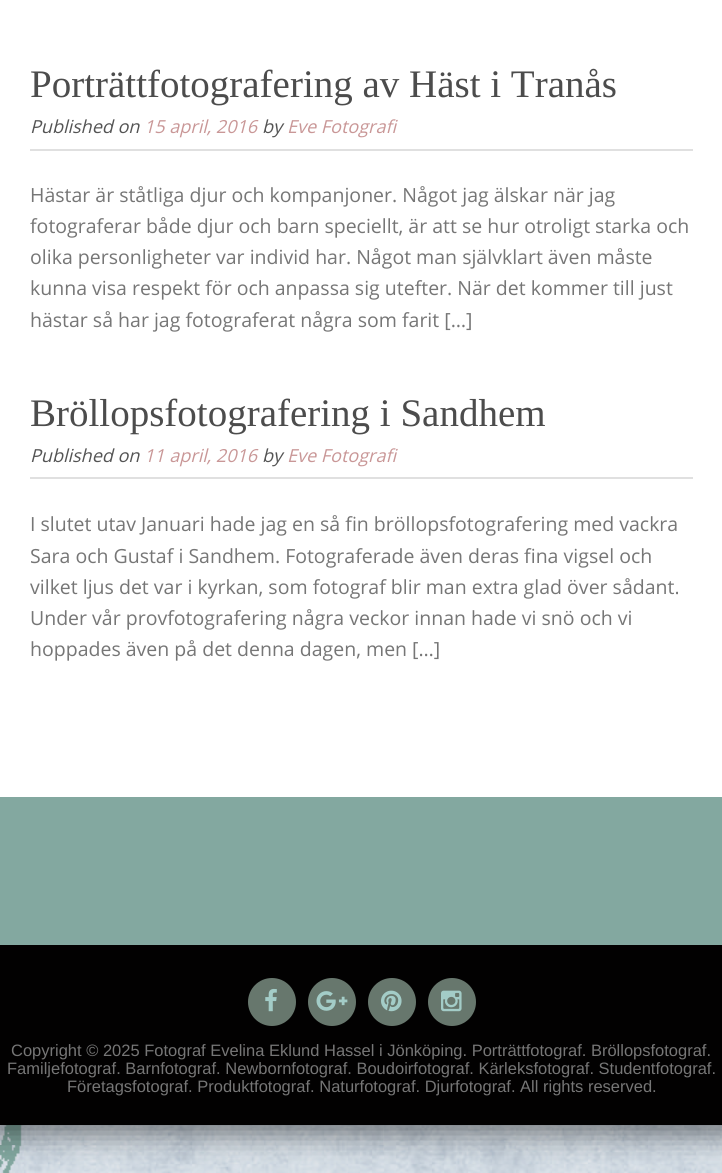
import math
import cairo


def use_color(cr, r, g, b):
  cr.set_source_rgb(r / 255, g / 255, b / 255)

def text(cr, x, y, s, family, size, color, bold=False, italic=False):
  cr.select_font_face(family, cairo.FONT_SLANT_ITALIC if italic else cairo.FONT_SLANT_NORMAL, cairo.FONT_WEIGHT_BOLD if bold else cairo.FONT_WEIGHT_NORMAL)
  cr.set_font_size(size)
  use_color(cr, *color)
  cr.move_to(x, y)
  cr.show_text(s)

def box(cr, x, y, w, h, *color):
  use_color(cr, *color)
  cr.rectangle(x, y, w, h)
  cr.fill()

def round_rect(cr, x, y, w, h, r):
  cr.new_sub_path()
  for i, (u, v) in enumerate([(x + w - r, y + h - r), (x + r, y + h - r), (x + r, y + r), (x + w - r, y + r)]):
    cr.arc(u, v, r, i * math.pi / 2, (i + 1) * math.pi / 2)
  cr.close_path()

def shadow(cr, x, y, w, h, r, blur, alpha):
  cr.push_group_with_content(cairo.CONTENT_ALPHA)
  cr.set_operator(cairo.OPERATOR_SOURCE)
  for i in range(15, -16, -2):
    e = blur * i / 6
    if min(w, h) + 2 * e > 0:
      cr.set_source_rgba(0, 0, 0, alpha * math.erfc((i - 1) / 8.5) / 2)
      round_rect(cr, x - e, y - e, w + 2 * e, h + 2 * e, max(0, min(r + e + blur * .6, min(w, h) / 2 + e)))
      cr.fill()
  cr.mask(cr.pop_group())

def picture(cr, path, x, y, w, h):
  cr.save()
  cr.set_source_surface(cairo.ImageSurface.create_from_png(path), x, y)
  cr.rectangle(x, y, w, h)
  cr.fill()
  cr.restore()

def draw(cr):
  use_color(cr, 255, 255, 255)
  cr.paint()
  picture(cr, "img_01.png", 0, 1125, 722, 48)
  use_color(cr, 0, 0, 0)
  shadow(cr, -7, -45, 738, 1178, 0, 15, 0.5)
  box(cr, 0, 0, 722, 797, 255, 255, 255)
  box(cr, 30, 149, 663, 2, 224, 224, 224)
  box(cr, 30, 477, 663, 2, 224, 224, 224)
  box(cr, 0, 797, 722, 148, 131, 168, 160)
  box(cr, 0, 945, 722, 180, 2, 1, 1)
  use_color(cr, 103, 119, 109)
  cr.arc(272, 1002, 24, 0, 2 * math.pi)
  cr.fill()
  picture(cr, "img_02.png", 265, 988, 12, 24)
  cr.arc(332, 1002, 24, 0, 2 * math.pi)
  cr.fill()
  picture(cr, "img_03.png", 316, 991, 32, 20)
  cr.arc(392, 1002, 24, 0, 2 * math.pi)
  cr.fill()
  picture(cr, "img_04.png", 381, 990, 21, 22)
  cr.arc(452, 1002, 24, 0, 2 * math.pi)
  cr.fill()
  picture(cr, "img_05.png", 441, 990, 21, 22)
  text(cr, 30, 97, "Porträttfotografering av Häst i Tranås", "Liberation Serif", 39, (76, 76, 76))
  text(cr, 30, 133, "Published on", "Open Sans", 18, (84, 84, 84), italic=True)
  text(cr, 144, 133, "15 april, 2016", "Open Sans", 18, (201, 151, 151), italic=True)
  text(cr, 262, 133, "by", "Open Sans", 18, (84, 84, 84), italic=True)
  text(cr, 287, 133, "Eve Fotografi", "Open Sans", 18, (201, 151, 151), italic=True)
  text(cr, 30, 202, "Hästar är ståtliga djur och kompanjoner. Något jag älskar när jag", "Open Sans", 19.5, (118, 118, 118))
  text(cr, 30, 233, "fotograferar både djur och barn speciellt, är att se hur otroligt starka och", "Open Sans", 19.5, (118, 118, 118))
  text(cr, 30, 264, "olika personligheter var individ har. Något man självklart även måste", "Open Sans", 19.5, (118, 118, 118))
  text(cr, 30, 295, "kunna visa respekt för och anpassa sig utefter. När det kommer till just", "Open Sans", 19.5, (118, 118, 118))
  text(cr, 30, 327, "hästar så har jag fotograferat några som farit […]", "Open Sans", 19.5, (118, 118, 118))
  text(cr, 30, 426, "Bröllopsfotografering i Sandhem", "Liberation Serif", 39, (76, 76, 76))
  text(cr, 30, 462, "Published on", "Open Sans", 18, (84, 84, 84), italic=True)
  text(cr, 144, 462, "11 april, 2016", "Open Sans", 18, (201, 151, 151), italic=True)
  text(cr, 262, 462, "by", "Open Sans", 18, (84, 84, 84), italic=True)
  text(cr, 287, 462, "Eve Fotografi", "Open Sans", 18, (201, 151, 151), italic=True)
  text(cr, 30, 531, "I slutet utav Januari hade jag en så fin bröllopsfotografering med vackra", "Open Sans", 19.5, (118, 118, 118))
  text(cr, 30, 563, "Sara och Gustaf i Sandhem. Fotograferade även deras fina vigsel och", "Open Sans", 19.5, (118, 118, 118))
  text(cr, 30, 594, "vilket ljus det var i kyrkan, som fotograf blir man extra glad över sådant.", "Open Sans", 19.5, (118, 118, 118))
  text(cr, 30, 625, "Under vår provfotografering några veckor innan hade vi snö och vi", "Open Sans", 19.5, (118, 118, 118))
  text(cr, 30, 656, "hoppades även på det denna dagen, men […]", "Open Sans", 19.5, (118, 118, 118))
  text(cr, 11, 1056, "Copyright © 2025 Fotograf Evelina Eklund Hassel i Jönköping. Porträttfotograf. Bröllopsfotograf.", "Liberation Sans", 16.5, (118, 118, 118))
  text(cr, 7, 1074, "Familjefotograf. Barnfotograf. Newbornfotograf. Boudoirfotograf. Kärleksfotograf. Studentfotograf.", "Liberation Sans", 16.5, (118, 118, 118))
  text(cr, 67, 1092, "Företagsfotograf. Produktfotograf. Naturfotograf. Djurfotograf. All rights reserved.", "Liberation Sans", 16.5, (118, 118, 118))


surface = cairo.ImageSurface(cairo.FORMAT_RGB24, 722, 1173)
cr = cairo.Context(surface)
options = cairo.FontOptions()
options.set_hint_metrics(cairo.HINT_METRICS_OFF)
options.set_hint_style(cairo.HINT_STYLE_NONE)
cr.set_font_options(options)
cr.set_miter_limit(4)
draw(cr)
surface.write_to_png("out.png")
